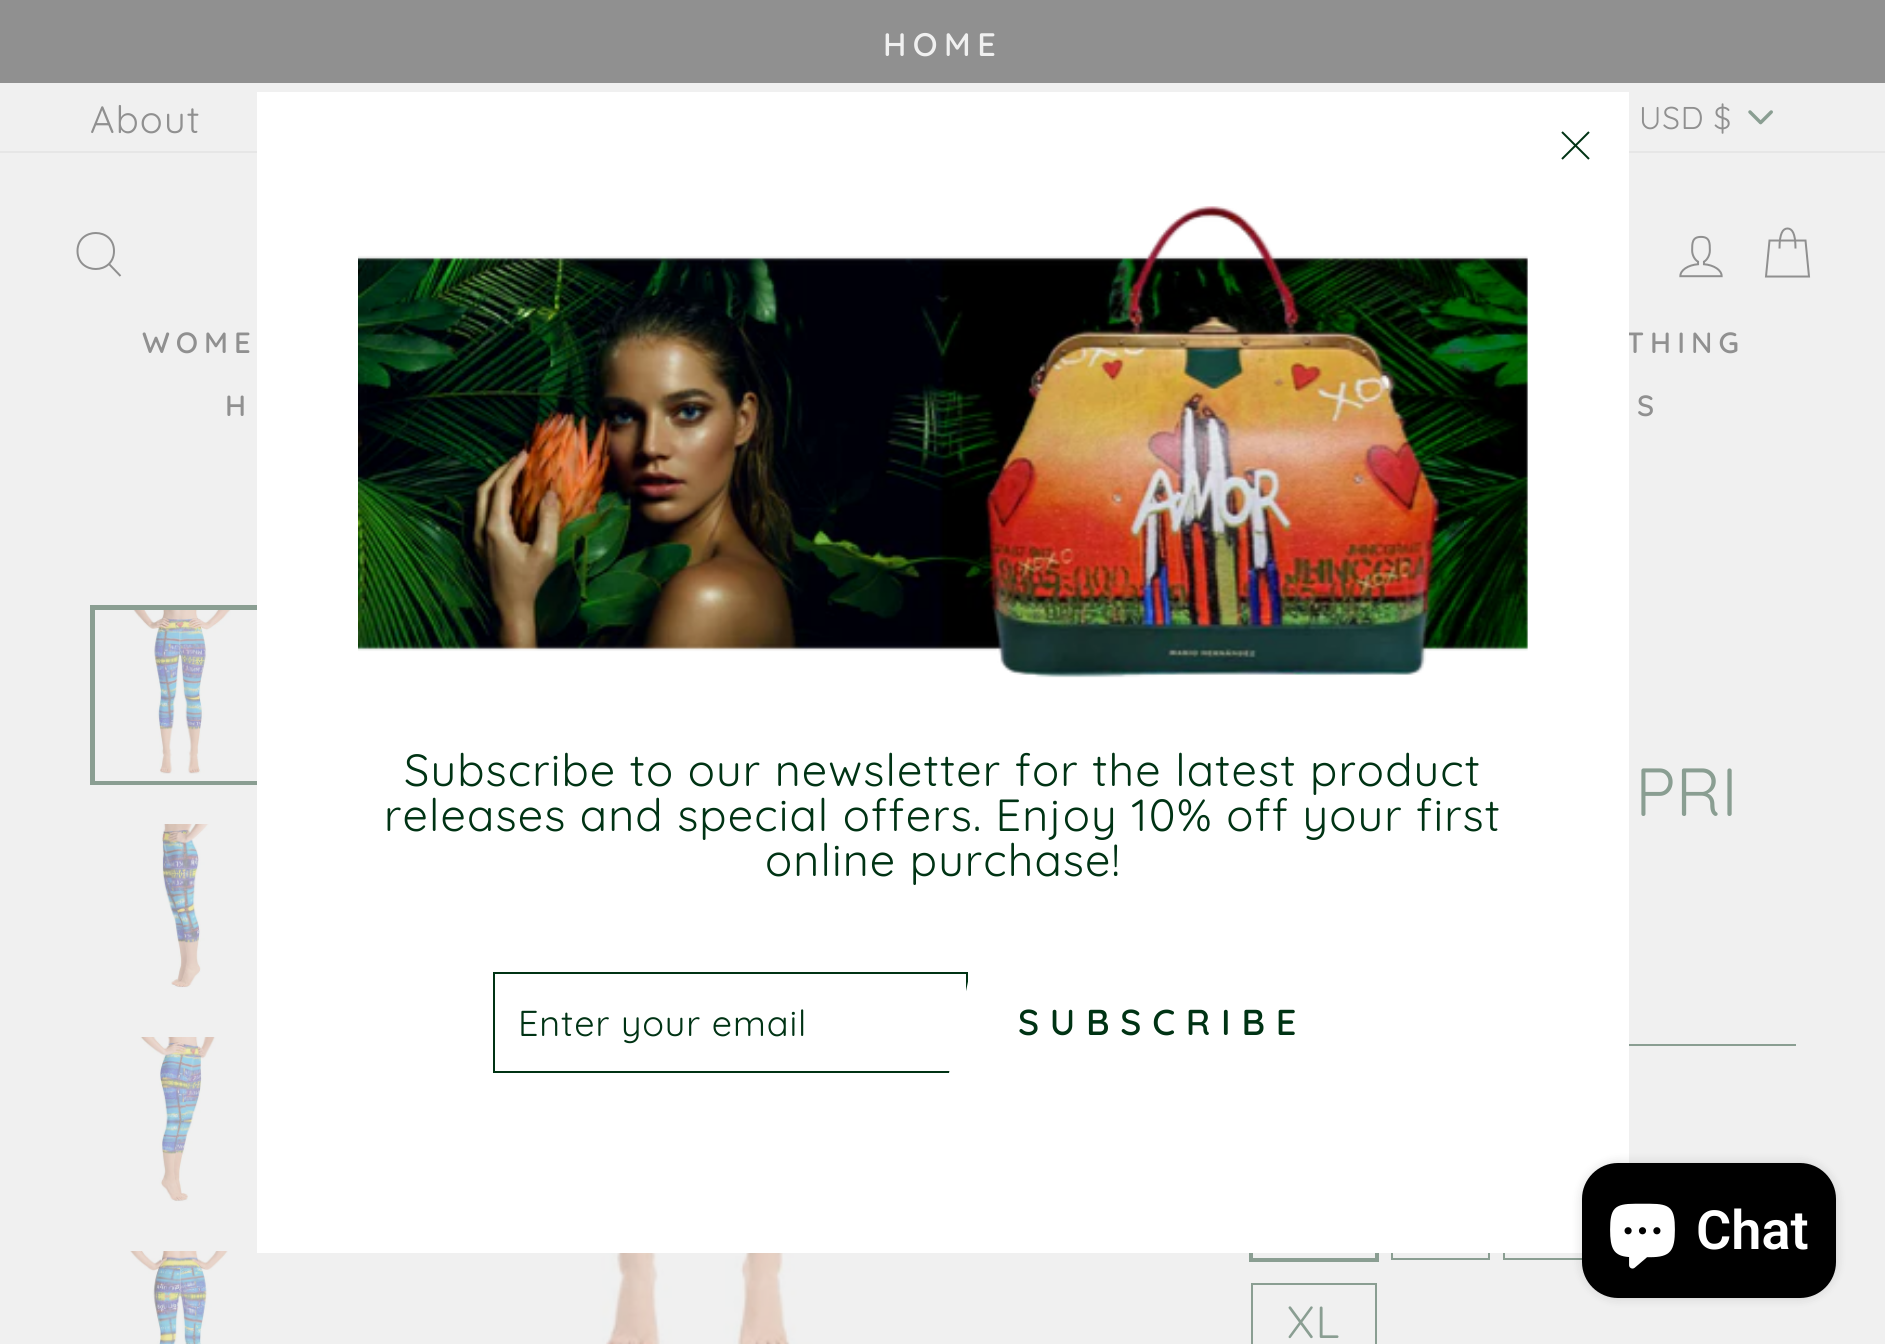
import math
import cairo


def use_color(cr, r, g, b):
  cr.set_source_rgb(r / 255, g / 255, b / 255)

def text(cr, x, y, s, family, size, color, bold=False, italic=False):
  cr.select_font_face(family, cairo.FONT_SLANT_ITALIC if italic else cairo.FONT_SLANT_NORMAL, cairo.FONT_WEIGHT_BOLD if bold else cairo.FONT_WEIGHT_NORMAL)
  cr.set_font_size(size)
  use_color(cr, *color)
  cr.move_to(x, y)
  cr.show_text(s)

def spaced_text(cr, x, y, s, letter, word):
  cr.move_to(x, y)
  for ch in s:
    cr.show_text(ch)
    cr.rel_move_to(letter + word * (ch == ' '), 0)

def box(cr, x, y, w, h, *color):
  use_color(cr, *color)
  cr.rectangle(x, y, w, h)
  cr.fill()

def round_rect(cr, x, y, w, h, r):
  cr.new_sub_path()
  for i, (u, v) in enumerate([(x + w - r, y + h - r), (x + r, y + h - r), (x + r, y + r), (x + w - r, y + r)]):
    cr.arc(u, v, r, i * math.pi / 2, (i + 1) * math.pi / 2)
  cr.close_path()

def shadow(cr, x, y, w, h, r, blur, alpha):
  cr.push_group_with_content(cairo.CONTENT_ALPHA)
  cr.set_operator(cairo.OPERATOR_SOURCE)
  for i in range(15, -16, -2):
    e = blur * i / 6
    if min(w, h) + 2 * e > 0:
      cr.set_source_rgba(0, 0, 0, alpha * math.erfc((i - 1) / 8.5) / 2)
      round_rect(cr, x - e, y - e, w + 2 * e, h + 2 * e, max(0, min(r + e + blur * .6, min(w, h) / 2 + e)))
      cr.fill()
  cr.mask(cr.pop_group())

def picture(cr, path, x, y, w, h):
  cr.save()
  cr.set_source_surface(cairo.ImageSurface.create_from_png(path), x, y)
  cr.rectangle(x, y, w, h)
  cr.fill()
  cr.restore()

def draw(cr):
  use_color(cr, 240, 240, 240)
  cr.paint()
  box(cr, 0, 0, 1885, 83, 144, 144, 144)
  picture(cr, "img_01.png", 1748, 110, 25, 15)
  box(cr, 0, 151, 1885, 2, 230, 230, 230)
  cr.new_path()
  cr.move_to(114, 251)
  cr.curve_to(114, 275, 77.5, 275, 77.5, 251)
  cr.curve_to(77.5, 227, 114, 227, 114, 251)
  cr.close_path()
  cr.move_to(120.5, 276)
  cr.line_to(109, 264)
  use_color(cr, 144, 144, 144)
  cr.stroke()
  picture(cr, "img_02.png", 1679, 235, 44, 43)
  cr.new_path()
  cr.move_to(1779.5, 248.5)
  cr.curve_to(1779.5, 233, 1783, 228.5, 1787.5, 228.5)
  cr.curve_to(1792, 228.5, 1795.5, 233, 1795.5, 248.5)
  cr.move_to(1769.5, 240.5)
  cr.line_to(1805.5, 240.5)
  cr.line_to(1809, 276.5)
  cr.line_to(1766, 276.5)
  cr.close_path()
  cr.stroke()
  cr.rectangle(92.5, 607.5, 175, 175)
  use_color(cr, 138, 158, 146)
  cr.set_line_width(5)
  cr.stroke()
  box(cr, 95, 780, 162, 1, 240, 240, 240)
  picture(cr, "img_03.png", 132, 610, 99, 164)
  picture(cr, "img_04.png", 161, 824, 48, 164)
  picture(cr, "img_05.png", 140, 1037, 76, 165)
  picture(cr, "img_06.png", 130, 1251, 98, 93)
  picture(cr, "img_07.png", 479, 1253, 456, 91)
  box(cr, 1629, 1044, 167, 2, 138, 158, 146)
  cr.rectangle(1251.5, 1179.5, 125, 80)
  cr.stroke()
  box(cr, 1253, 1253, 122, 5, 240, 240, 240)
  cr.rectangle(1392, 1180, 97, 79)
  use_color(cr, 138, 158, 146)
  cr.set_line_width(2)
  cr.stroke()
  cr.rectangle(1504, 1180, 108, 79)
  cr.stroke()
  cr.rectangle(1252, 1284, 124, 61)
  cr.stroke()
  cr.select_font_face("Quicksand SemiBold")
  cr.set_font_size(32.5)
  use_color(cr, 240, 240, 240)
  spaced_text(cr, 883, 56, "HOME", 6.5, 0)
  cr.select_font_face("Quicksand")
  cr.set_font_size(38)
  use_color(cr, 144, 144, 144)
  spaced_text(cr, 90, 133, "About", 1.12, 0)
  cr.set_font_size(31.5)
  spaced_text(cr, 1639, 129, "USD $", 0.75, 0)
  cr.select_font_face("Quicksand SemiBold")
  cr.set_font_size(29.25)
  spaced_text(cr, 142, 353, "WOME", 6, 0)
  spaced_text(cr, 1626, 353, "THING", 6, 0)
  spaced_text(cr, 225, 416, "H", 6, 0)
  spaced_text(cr, 1637, 416, "S", 6, 0)
  text(cr, 1635, 816, "PRI", "Quicksand", 68, (138, 158, 146))
  cr.set_font_size(45)
  spaced_text(cr, 1287, 1338, "XL", 1.12, 0)
  box(cr, 257, 92, 1372, 1161, 255, 255, 255)
  cr.new_path()
  cr.move_to(1562, 132)
  cr.line_to(1589, 159)
  cr.move_to(1589, 132)
  cr.line_to(1562, 159)
  use_color(cr, 0, 51, 20)
  cr.stroke()
  picture(cr, "img_08.png", 358, 206, 1170, 472)
  spaced_text(cr, 404, 786, "Subscribe to our newsletter for the latest product", 1.12, 0)
  spaced_text(cr, 384, 831, "releases and special offers. Enjoy 10% off your first", 1.12, 0)
  spaced_text(cr, 765, 876, "online purchase!", 1.12, 0)
  cr.rectangle(494, 973, 473, 99)
  cr.stroke()
  cr.set_font_size(36)
  spaced_text(cr, 518, 1036, "Enter your email", 0.9, 0)
  use_color(cr, 255, 255, 255)
  cr.new_path()
  cr.move_to(970, 972)
  cr.line_to(1015, 972)
  cr.line_to(994, 1073)
  cr.line_to(949, 1073)
  cr.close_path()
  cr.fill()
  cr.select_font_face("Quicksand SemiBold")
  use_color(cr, 0, 51, 20)
  spaced_text(cr, 1018, 1035, "SUBSCRIBE", 10.75, 0)
  use_color(cr, 0, 0, 0)
  shadow(cr, 1582, 1163, 254, 135, 36, 5.5, 0.15)
  use_color(cr, 0, 0, 0)
  round_rect(cr, 1582, 1163, 254, 135, 36)
  cr.fill()
  picture(cr, "img_09.png", 1610, 1203, 65, 66)
  text(cr, 1696, 1249, "Chat", "Roboto SemiBold", 54, (255, 255, 255))


surface = cairo.ImageSurface(cairo.FORMAT_RGB24, 1885, 1344)
cr = cairo.Context(surface)
options = cairo.FontOptions()
options.set_hint_metrics(cairo.HINT_METRICS_OFF)
options.set_hint_style(cairo.HINT_STYLE_NONE)
cr.set_font_options(options)
cr.set_miter_limit(4)
draw(cr)
surface.write_to_png("out.png")
